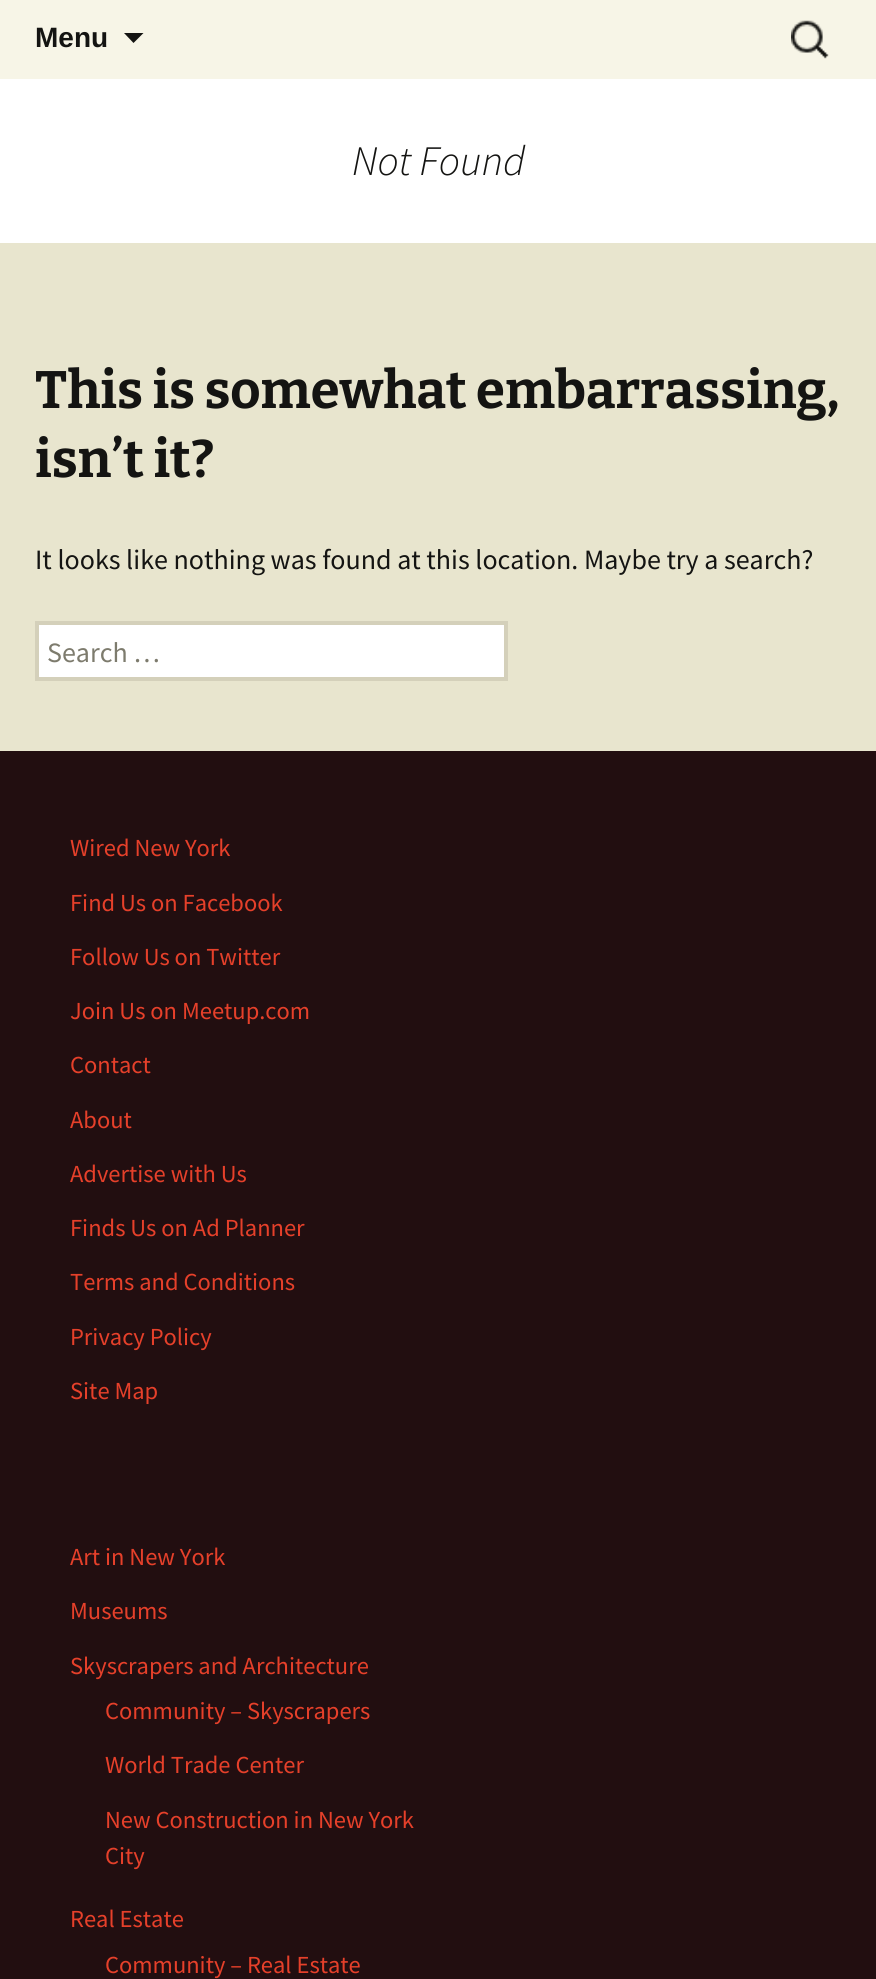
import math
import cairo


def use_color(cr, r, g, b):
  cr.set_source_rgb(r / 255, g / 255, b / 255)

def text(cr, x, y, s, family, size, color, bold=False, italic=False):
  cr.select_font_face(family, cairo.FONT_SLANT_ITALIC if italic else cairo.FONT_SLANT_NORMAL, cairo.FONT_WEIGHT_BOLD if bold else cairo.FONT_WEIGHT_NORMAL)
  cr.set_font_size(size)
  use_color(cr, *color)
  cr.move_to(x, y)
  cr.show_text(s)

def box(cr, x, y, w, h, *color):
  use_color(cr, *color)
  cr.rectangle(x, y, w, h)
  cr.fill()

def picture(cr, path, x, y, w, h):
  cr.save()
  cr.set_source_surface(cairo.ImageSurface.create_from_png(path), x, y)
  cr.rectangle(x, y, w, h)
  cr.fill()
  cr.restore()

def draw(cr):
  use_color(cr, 255, 255, 255)
  cr.paint()
  box(cr, 0, 0, 876, 79, 247, 245, 231)
  use_color(cr, 20, 20, 18)
  cr.new_path()
  cr.move_to(124, 33)
  cr.line_to(133.5, 43)
  cr.line_to(143.5, 33)
  cr.close_path()
  cr.fill()
  picture(cr, "img_01.png", 791, 20, 38, 39)
  box(cr, 0, 243, 876, 508, 232, 229, 206)
  use_color(cr, 255, 255, 255)
  cr.rectangle(37, 623, 469, 56)
  cr.fill_preserve()
  use_color(cr, 212, 208, 186)
  cr.set_line_width(4)
  cr.stroke()
  box(cr, 0, 751, 876, 1228, 34, 14, 16)
  text(cr, 35, 47, "Menu", "Liberation Sans", 28, (20, 20, 18), bold=True)
  text(cr, 352, 175, "Not Found", "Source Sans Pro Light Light", 42, (20, 20, 18), italic=True)
  text(cr, 35, 408, "This is somewhat embarrassing,", "Bitter", 52.5, (20, 20, 18), bold=True)
  text(cr, 35, 477, "isn’t it?", "Bitter", 52.5, (20, 20, 18), bold=True)
  text(cr, 35, 569, "It looks like nothing was found at this location. Maybe try a search?", "Source Sans Pro", 28, (20, 20, 18))
  text(cr, 47, 662, "Search …", "Source Sans Pro", 28, (125, 123, 109))
  text(cr, 70, 856, "Wired New York", "Source Sans Pro", 24.5, (230, 64, 42))
  text(cr, 70, 911, "Find Us on Facebook", "Source Sans Pro", 24.5, (230, 64, 42))
  text(cr, 70, 965, "Follow Us on Twitter", "Source Sans Pro", 24.5, (230, 64, 42))
  text(cr, 70, 1019, "Join Us on Meetup.com", "Source Sans Pro", 24.5, (230, 64, 42))
  text(cr, 70, 1073, "Contact", "Source Sans Pro", 24.5, (230, 64, 42))
  text(cr, 70, 1128, "About", "Source Sans Pro", 24.5, (230, 64, 42))
  text(cr, 70, 1182, "Advertise with Us", "Source Sans Pro", 24.5, (230, 64, 42))
  text(cr, 70, 1236, "Finds Us on Ad Planner", "Source Sans Pro", 24.5, (230, 64, 42))
  text(cr, 70, 1290, "Terms and Conditions", "Source Sans Pro", 24.5, (230, 64, 42))
  text(cr, 70, 1345, "Privacy Policy", "Source Sans Pro", 24.5, (230, 64, 42))
  text(cr, 70, 1399, "Site Map", "Source Sans Pro", 24.5, (230, 64, 42))
  text(cr, 70, 1565, "Art in New York", "Source Sans Pro", 24.5, (230, 64, 42))
  text(cr, 70, 1619, "Museums", "Source Sans Pro", 24.5, (230, 64, 42))
  text(cr, 70, 1674, "Skyscrapers and Architecture", "Source Sans Pro", 24.5, (230, 64, 42))
  text(cr, 105, 1719, "Community – Skyscrapers", "Source Sans Pro", 24.5, (230, 64, 42))
  text(cr, 105, 1773, "World Trade Center", "Source Sans Pro", 24.5, (230, 64, 42))
  text(cr, 105, 1828, "New Construction in New York", "Source Sans Pro", 24.5, (230, 64, 42))
  text(cr, 105, 1864, "City", "Source Sans Pro", 24.5, (230, 64, 42))
  text(cr, 70, 1927, "Real Estate", "Source Sans Pro", 24.5, (230, 64, 42))
  text(cr, 105, 1973, "Community – Real Estate", "Source Sans Pro", 24.5, (230, 64, 42))


surface = cairo.ImageSurface(cairo.FORMAT_RGB24, 876, 1979)
cr = cairo.Context(surface)
options = cairo.FontOptions()
options.set_hint_metrics(cairo.HINT_METRICS_OFF)
options.set_hint_style(cairo.HINT_STYLE_NONE)
cr.set_font_options(options)
cr.set_miter_limit(4)
draw(cr)
surface.write_to_png("out.png")
